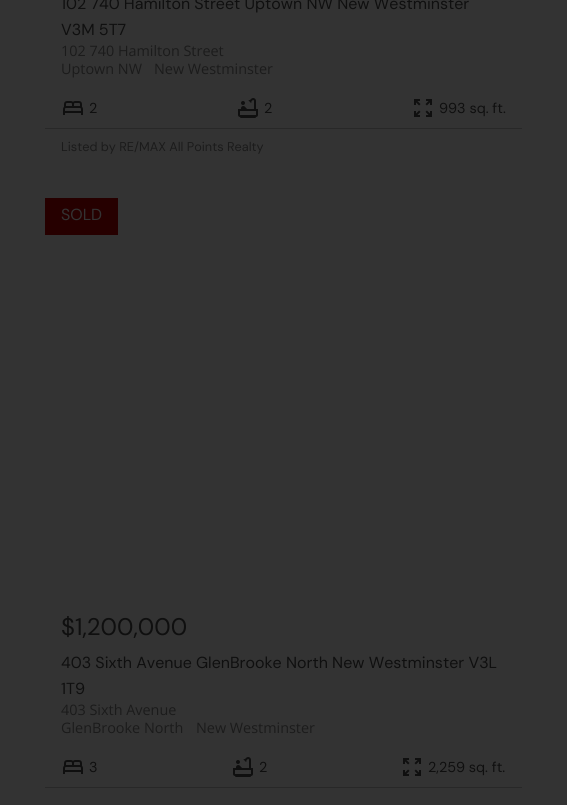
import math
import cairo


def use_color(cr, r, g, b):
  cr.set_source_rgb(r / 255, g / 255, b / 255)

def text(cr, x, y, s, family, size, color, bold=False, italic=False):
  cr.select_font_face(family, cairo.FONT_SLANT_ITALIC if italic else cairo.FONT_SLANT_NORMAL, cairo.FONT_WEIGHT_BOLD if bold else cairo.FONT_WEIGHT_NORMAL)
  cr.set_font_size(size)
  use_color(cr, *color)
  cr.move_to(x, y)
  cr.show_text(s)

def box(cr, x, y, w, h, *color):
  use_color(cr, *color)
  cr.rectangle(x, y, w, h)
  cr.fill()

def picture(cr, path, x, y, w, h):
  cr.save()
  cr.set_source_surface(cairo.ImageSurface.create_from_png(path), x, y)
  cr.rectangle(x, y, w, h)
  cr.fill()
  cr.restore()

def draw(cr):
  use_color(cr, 51, 51, 51)
  cr.paint()
  picture(cr, "img_01.png", 63, 101, 20, 14)
  picture(cr, "img_02.png", 238, 98, 20, 20)
  picture(cr, "img_03.png", 414, 99, 18, 18)
  box(cr, 45, 128, 477, 1, 40, 40, 40)
  box(cr, 45, 198, 73, 37, 38, 0, 0)
  picture(cr, "img_01.png", 63, 760, 20, 14)
  picture(cr, "img_02.png", 233, 757, 20, 20)
  picture(cr, "img_03.png", 403, 758, 18, 18)
  box(cr, 45, 787, 477, 1, 40, 40, 40)
  text(cr, 61, 9, "102 740 Hamilton Street Uptown NW New Westminster", "DM Sans", 16, (15, 15, 15))
  text(cr, 61, 35, "V3M 5T7", "DM Sans", 16, (15, 15, 15))
  text(cr, 61, 56, "102 740 Hamilton Street", "Open Sans", 14.4, (27, 27, 27))
  text(cr, 61, 74, "Uptown NW", "Open Sans", 14.4, (27, 27, 27))
  text(cr, 154, 74, "New Westminster", "Open Sans", 14.4, (27, 27, 27))
  text(cr, 89, 113, "2", "DM Sans", 14.4, (15, 15, 15))
  text(cr, 264, 113, "2", "DM Sans", 14.4, (15, 15, 15))
  text(cr, 439, 113, "993 sq. ft.", "DM Sans", 14.4, (15, 15, 15))
  text(cr, 61, 151, "Listed by RE/MAX All Points Realty", "DM Sans", 12.75, (27, 27, 27))
  text(cr, 61, 220, "SOLD", "DM Sans", 16, (51, 51, 51))
  text(cr, 61, 635, "$1,200,000", "DM Sans", 24, (15, 15, 15))
  text(cr, 61, 668, "403 Sixth Avenue GlenBrooke North New Westminster V3L", "DM Sans", 16, (15, 15, 15))
  text(cr, 61, 694, "1T9", "DM Sans", 16, (15, 15, 15))
  text(cr, 61, 715, "403 Sixth Avenue", "Open Sans", 14.4, (27, 27, 27))
  text(cr, 61, 733, "GlenBrooke North", "Open Sans", 14.4, (27, 27, 27))
  text(cr, 196, 733, "New Westminster", "Open Sans", 14.4, (27, 27, 27))
  text(cr, 89, 772, "3", "DM Sans", 14.4, (15, 15, 15))
  text(cr, 259, 772, "2", "DM Sans", 14.4, (15, 15, 15))
  text(cr, 428, 772, "2,259 sq. ft.", "DM Sans", 14.4, (15, 15, 15))


surface = cairo.ImageSurface(cairo.FORMAT_RGB24, 567, 805)
cr = cairo.Context(surface)
options = cairo.FontOptions()
options.set_hint_metrics(cairo.HINT_METRICS_OFF)
options.set_hint_style(cairo.HINT_STYLE_NONE)
cr.set_font_options(options)
cr.set_miter_limit(4)
draw(cr)
surface.write_to_png("out.png")
